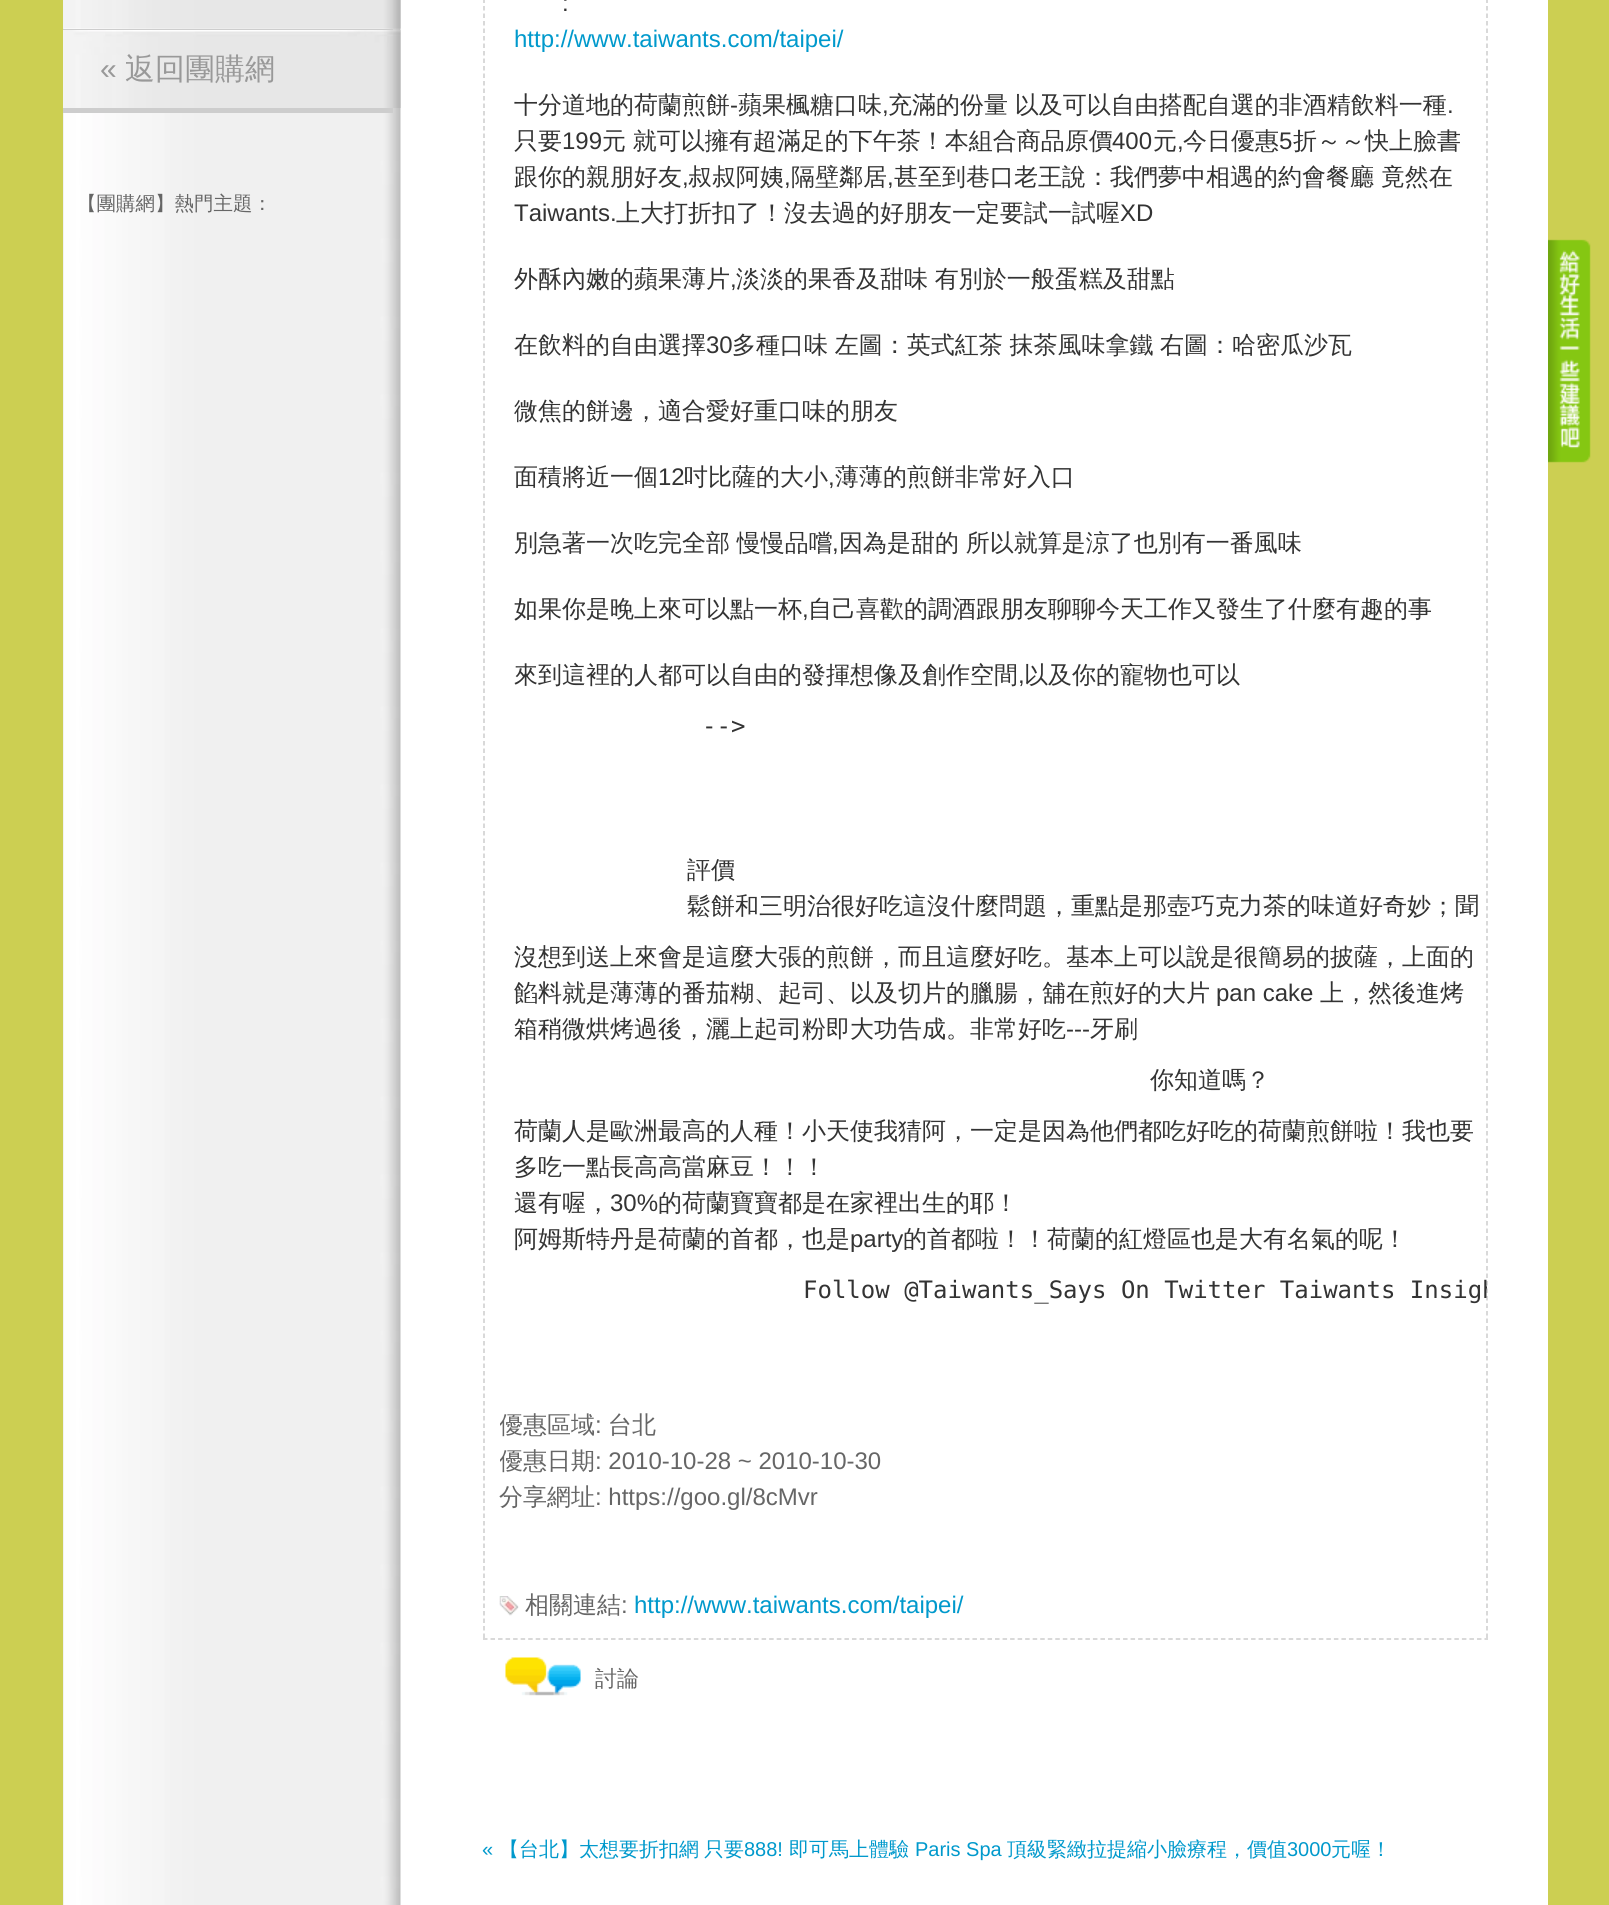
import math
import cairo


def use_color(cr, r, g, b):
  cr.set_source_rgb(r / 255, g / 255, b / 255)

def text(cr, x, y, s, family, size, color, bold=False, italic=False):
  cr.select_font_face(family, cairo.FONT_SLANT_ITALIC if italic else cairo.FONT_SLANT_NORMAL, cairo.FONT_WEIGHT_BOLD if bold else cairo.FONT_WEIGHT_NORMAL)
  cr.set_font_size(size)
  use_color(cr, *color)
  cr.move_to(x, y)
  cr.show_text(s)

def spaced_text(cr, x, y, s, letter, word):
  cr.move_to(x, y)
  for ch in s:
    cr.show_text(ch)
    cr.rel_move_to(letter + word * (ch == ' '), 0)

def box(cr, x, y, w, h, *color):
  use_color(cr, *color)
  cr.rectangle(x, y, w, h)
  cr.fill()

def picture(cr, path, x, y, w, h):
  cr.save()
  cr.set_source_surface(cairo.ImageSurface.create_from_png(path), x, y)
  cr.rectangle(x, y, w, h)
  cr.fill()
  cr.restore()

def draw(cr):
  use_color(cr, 204, 207, 82)
  cr.paint()
  box(cr, 401, 0, 1147, 1905, 255, 255, 255)
  picture(cr, "img_01.png", 63, 0, 338, 1905)
  box(cr, 63, 29, 330, 1, 205, 205, 205)
  picture(cr, "img_02.png", 64, 0, 337, 29)
  box(cr, 63, 108, 330, 5, 205, 205, 205)
  picture(cr, "img_03.png", 63, 30, 338, 78)
  cr.new_path()
  cr.move_to(1487, -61.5)
  cr.line_to(1487, 1639.5)
  use_color(cr, 204, 204, 204)
  cr.set_line_width(1.5)
  cr.set_dash([4.5, 3])
  cr.stroke()
  cr.new_path()
  cr.move_to(483, 1639)
  cr.line_to(1488, 1639)
  cr.set_dash([4.5, 3.03])
  cr.stroke()
  cr.new_path()
  cr.move_to(484, -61.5)
  cr.line_to(484, 1639.5)
  cr.set_dash([4.5, 3])
  cr.stroke()
  picture(cr, "img_04.png", 499, 1596, 20, 20)
  picture(cr, "img_05.png", 505, 1657, 76, 39)
  picture(cr, "img_06.png", 1548, 239, 43, 224)
  text(cr, 100, 79, "«", "Liberation Sans", 30, (153, 153, 153))
  text(cr, 125, 79, "返回團購網", "WenQuanYi Zen Hei Medium", 30, (153, 153, 153))
  text(cr, 77, 210, "【團購網】熱門主題：", "WenQuanYi Zen Hei Medium", 19.5, (102, 102, 102))
  text(cr, 562, 11, ":", "Liberation Sans", 24, (51, 51, 51))
  text(cr, 514, 47, "http://www.taiwants.com/taipei/", "Liberation Sans", 24, (0, 153, 204))
  text(cr, 514, 113, "十分道地的荷蘭煎餅", "WenQuanYi Zen Hei Medium", 24, (51, 51, 51))
  text(cr, 730, 113, "-", "Liberation Sans", 24, (51, 51, 51))
  text(cr, 738, 113, "蘋果楓糖口味", "WenQuanYi Zen Hei Medium", 24, (51, 51, 51))
  spaced_text(cr, 888, 113, "充滿的份量 以及可以自由搭配自選的非酒精飲料一種", 0, -0.5)
  text(cr, 882, 113, ",", "Liberation Sans", 24, (51, 51, 51))
  text(cr, 1447, 113, ".", "Liberation Sans", 24, (51, 51, 51))
  text(cr, 514, 149, "只要", "WenQuanYi Zen Hei Medium", 24, (51, 51, 51))
  text(cr, 562, 149, "199", "Liberation Sans", 24, (51, 51, 51))
  cr.select_font_face("WenQuanYi Zen Hei Medium")
  spaced_text(cr, 602, 149, "元 就可以擁有超滿足的下午茶！本組合商品原價", 0, -0.5)
  text(cr, 1112, 149, "400", "Liberation Sans", 24, (51, 51, 51))
  text(cr, 1153, 149, "元", "WenQuanYi Zen Hei Medium", 24, (51, 51, 51))
  text(cr, 1177, 149, ",", "Liberation Sans", 24, (51, 51, 51))
  text(cr, 1183, 149, "今日優惠", "WenQuanYi Zen Hei Medium", 24, (51, 51, 51))
  text(cr, 1279, 149, "5", "Liberation Sans", 24, (51, 51, 51))
  text(cr, 1293, 149, "折～～快上臉書", "WenQuanYi Zen Hei Medium", 24, (51, 51, 51))
  text(cr, 514, 185, "跟你的親朋好友", "WenQuanYi Zen Hei Medium", 24, (51, 51, 51))
  text(cr, 682, 185, ",", "Liberation Sans", 24, (51, 51, 51))
  text(cr, 688, 185, "叔叔阿姨", "WenQuanYi Zen Hei Medium", 24, (51, 51, 51))
  text(cr, 784, 185, ",", "Liberation Sans", 24, (51, 51, 51))
  text(cr, 791, 185, "隔壁鄰居", "WenQuanYi Zen Hei Medium", 24, (51, 51, 51))
  text(cr, 887, 185, ",", "Liberation Sans", 24, (51, 51, 51))
  cr.select_font_face("WenQuanYi Zen Hei Medium")
  spaced_text(cr, 894, 185, "甚至到巷口老王說：我們夢中相遇的約會餐廳 竟然在", 0, -0.5)
  text(cr, 514, 221, "Taiwants.", "Liberation Sans", 24, (51, 51, 51))
  text(cr, 616, 221, "上大打折扣了！沒去過的好朋友一定要試一試喔", "WenQuanYi Zen Hei Medium", 24, (51, 51, 51))
  text(cr, 1120, 221, "XD", "Liberation Sans", 24, (51, 51, 51))
  text(cr, 514, 287, "外酥內嫩的蘋果薄片", "WenQuanYi Zen Hei Medium", 24, (51, 51, 51))
  text(cr, 730, 287, ",", "Liberation Sans", 24, (51, 51, 51))
  cr.select_font_face("WenQuanYi Zen Hei Medium")
  spaced_text(cr, 736, 287, "淡淡的果香及甜味 有別於一般蛋糕及甜點", 0, -0.5)
  text(cr, 514, 353, "在飲料的自由選擇", "WenQuanYi Zen Hei Medium", 24, (51, 51, 51))
  text(cr, 706, 353, "30", "Liberation Sans", 24, (51, 51, 51))
  cr.select_font_face("WenQuanYi Zen Hei Medium")
  spaced_text(cr, 732, 353, "多種口味 左圖：英式紅茶 抹茶風味拿鐵 右圖：哈密瓜沙瓦", 0, -0.5)
  text(cr, 514, 419, "微焦的餅邊，適合愛好重口味的朋友", "WenQuanYi Zen Hei Medium", 24, (51, 51, 51))
  text(cr, 514, 485, "面積將近一個", "WenQuanYi Zen Hei Medium", 24, (51, 51, 51))
  text(cr, 658, 485, "12", "Liberation Sans", 24, (51, 51, 51))
  text(cr, 684, 485, "吋比薩的大小", "WenQuanYi Zen Hei Medium", 24, (51, 51, 51))
  text(cr, 828, 485, ",", "Liberation Sans", 24, (51, 51, 51))
  text(cr, 835, 485, "薄薄的煎餅非常好入口", "WenQuanYi Zen Hei Medium", 24, (51, 51, 51))
  spaced_text(cr, 514, 551, "別急著一次吃完全部 慢慢品嚐", 0, -0.5)
  text(cr, 832, 551, ",", "Liberation Sans", 24, (51, 51, 51))
  cr.select_font_face("WenQuanYi Zen Hei Medium")
  spaced_text(cr, 839, 551, "因為是甜的 所以就算是涼了也別有一番風味", 0, -0.5)
  text(cr, 514, 617, "如果你是晚上來可以點一杯", "WenQuanYi Zen Hei Medium", 24, (51, 51, 51))
  text(cr, 802, 617, ",", "Liberation Sans", 24, (51, 51, 51))
  text(cr, 808, 617, "自己喜歡的調酒跟朋友聊聊今天工作又發生了什麼有趣的事", "WenQuanYi Zen Hei Medium", 24, (51, 51, 51))
  text(cr, 514, 683, "來到這裡的人都可以自由的發揮想像及創作空間", "WenQuanYi Zen Hei Medium", 24, (51, 51, 51))
  text(cr, 1018, 683, ",", "Liberation Sans", 24, (51, 51, 51))
  text(cr, 1024, 683, "以及你的寵物也可以", "WenQuanYi Zen Hei Medium", 24, (51, 51, 51))
  text(cr, 702, 734, "-->", "DejaVu Sans Mono", 24, (51, 51, 51))
  text(cr, 687, 878, "評價", "WenQuanYi Zen Hei Medium", 24, (51, 51, 51))
  text(cr, 687, 914, "鬆餅和三明治很好吃這沒什麼問題，重點是那壺巧克力茶的味道好奇妙；聞", "WenQuanYi Zen Hei Medium", 24, (51, 51, 51))
  text(cr, 514, 965, "沒想到送上來會是這麼大張的煎餅，而且這麼好吃。基本上可以說是很簡易的披薩，上面的", "WenQuanYi Zen Hei Medium", 24, (51, 51, 51))
  text(cr, 514, 1001, "餡料就是薄薄的番茄糊、起司、以及切片的臘腸，舖在煎好的大片", "WenQuanYi Zen Hei Medium", 24, (51, 51, 51))
  text(cr, 1216, 1001, "pan cake", "Liberation Sans", 24, (51, 51, 51))
  text(cr, 1320, 1001, "上，然後進烤", "WenQuanYi Zen Hei Medium", 24, (51, 51, 51))
  text(cr, 514, 1037, "箱稍微烘烤過後，灑上起司粉即大功告成。非常好吃", "WenQuanYi Zen Hei Medium", 24, (51, 51, 51))
  text(cr, 1066, 1037, "---", "Liberation Sans", 24, (51, 51, 51))
  text(cr, 1090, 1037, "牙刷", "WenQuanYi Zen Hei Medium", 24, (51, 51, 51))
  text(cr, 1150, 1088, "你知道嗎？", "WenQuanYi Zen Hei Medium", 24, (51, 51, 51))
  text(cr, 514, 1139, "荷蘭人是歐洲最高的人種！小天使我猜阿，一定是因為他們都吃好吃的荷蘭煎餅啦！我也要", "WenQuanYi Zen Hei Medium", 24, (51, 51, 51))
  text(cr, 514, 1175, "多吃一點長高高當麻豆！！！", "WenQuanYi Zen Hei Medium", 24, (51, 51, 51))
  text(cr, 514, 1211, "還有喔，", "WenQuanYi Zen Hei Medium", 24, (51, 51, 51))
  text(cr, 610, 1211, "30%", "Liberation Sans", 24, (51, 51, 51))
  text(cr, 658, 1211, "的荷蘭寶寶都是在家裡出生的耶！", "WenQuanYi Zen Hei Medium", 24, (51, 51, 51))
  text(cr, 514, 1247, "阿姆斯特丹是荷蘭的首都，也是", "WenQuanYi Zen Hei Medium", 24, (51, 51, 51))
  text(cr, 850, 1247, "party", "Liberation Sans", 24, (51, 51, 51))
  text(cr, 903, 1247, "的首都啦！！荷蘭的紅燈區也是大有名氣的呢！", "WenQuanYi Zen Hei Medium", 24, (51, 51, 51))
  cr.save()
  cr.rectangle(500, 0, 987, 1323)
  cr.clip()
  text(cr, 803, 1298, "Follow @Taiwants_Says On Twitter Taiwants Insigh", "DejaVu Sans Mono", 24, (51, 51, 51))
  cr.restore()
  cr.save()
  cr.rectangle(500, 1335, 960, 288)
  cr.clip()
  text(cr, 499, 1433, "優惠區域", "WenQuanYi Zen Hei Medium", 24, (102, 102, 102))
  cr.restore()
  text(cr, 595, 1433, ":", "Liberation Sans", 24, (102, 102, 102))
  text(cr, 608, 1433, "台北", "WenQuanYi Zen Hei Medium", 24, (102, 102, 102))
  cr.save()
  cr.rectangle(500, 1335, 960, 288)
  cr.clip()
  text(cr, 499, 1469, "優惠日期", "WenQuanYi Zen Hei Medium", 24, (102, 102, 102))
  cr.restore()
  text(cr, 595, 1469, ": 2010-10-28 ~ 2010-10-30", "Liberation Sans", 24, (102, 102, 102))
  text(cr, 499, 1505, "分享網址", "WenQuanYi Zen Hei Medium", 24, (102, 102, 102))
  text(cr, 595, 1505, ": https://goo.gl/8cMvr", "Liberation Sans", 24, (102, 102, 102))
  text(cr, 525, 1613, "相關連結", "WenQuanYi Zen Hei Medium", 24, (102, 102, 102))
  text(cr, 621, 1613, ":", "Liberation Sans", 24, (102, 102, 102))
  text(cr, 634, 1613, "http://www.taiwants.com/taipei/", "Liberation Sans", 24, (0, 153, 204))
  text(cr, 595, 1686, "討論", "WenQuanYi Zen Hei Medium", 22, (102, 102, 102))
  text(cr, 482, 1856, "«", "Liberation Sans", 20, (0, 153, 204))
  text(cr, 499, 1856, "【台北】太想要折扣網", "WenQuanYi Zen Hei Medium", 20, (0, 153, 204))
  text(cr, 704, 1856, "只要", "WenQuanYi Zen Hei Medium", 20, (0, 153, 204))
  text(cr, 744, 1856, "888!", "Liberation Sans", 20, (0, 153, 204))
  text(cr, 789, 1856, "即可馬上體驗", "WenQuanYi Zen Hei Medium", 20, (0, 153, 204))
  text(cr, 915, 1856, "Paris Spa", "Liberation Sans", 20, (0, 153, 204))
  text(cr, 1007, 1856, "頂級緊緻拉提縮小臉療程，價值", "WenQuanYi Zen Hei Medium", 20, (0, 153, 204))
  text(cr, 1287, 1856, "3000", "Liberation Sans", 20, (0, 153, 204))
  text(cr, 1331, 1856, "元喔！", "WenQuanYi Zen Hei Medium", 20, (0, 153, 204))


surface = cairo.ImageSurface(cairo.FORMAT_RGB24, 1609, 1905)
cr = cairo.Context(surface)
options = cairo.FontOptions()
options.set_hint_metrics(cairo.HINT_METRICS_OFF)
options.set_hint_style(cairo.HINT_STYLE_NONE)
cr.set_font_options(options)
cr.set_miter_limit(4)
draw(cr)
surface.write_to_png("out.png")
